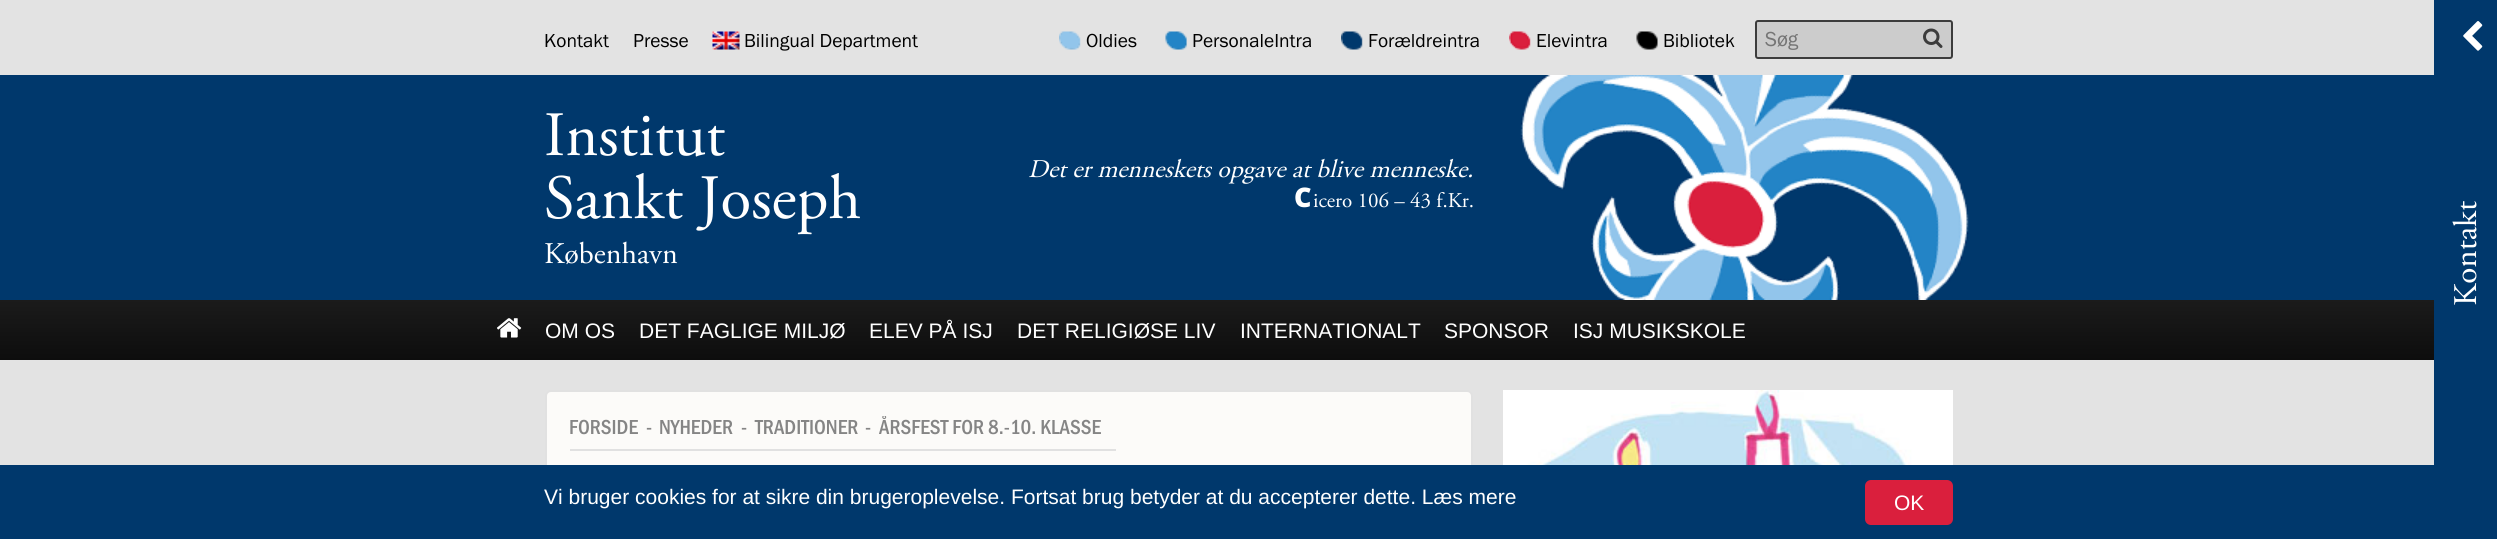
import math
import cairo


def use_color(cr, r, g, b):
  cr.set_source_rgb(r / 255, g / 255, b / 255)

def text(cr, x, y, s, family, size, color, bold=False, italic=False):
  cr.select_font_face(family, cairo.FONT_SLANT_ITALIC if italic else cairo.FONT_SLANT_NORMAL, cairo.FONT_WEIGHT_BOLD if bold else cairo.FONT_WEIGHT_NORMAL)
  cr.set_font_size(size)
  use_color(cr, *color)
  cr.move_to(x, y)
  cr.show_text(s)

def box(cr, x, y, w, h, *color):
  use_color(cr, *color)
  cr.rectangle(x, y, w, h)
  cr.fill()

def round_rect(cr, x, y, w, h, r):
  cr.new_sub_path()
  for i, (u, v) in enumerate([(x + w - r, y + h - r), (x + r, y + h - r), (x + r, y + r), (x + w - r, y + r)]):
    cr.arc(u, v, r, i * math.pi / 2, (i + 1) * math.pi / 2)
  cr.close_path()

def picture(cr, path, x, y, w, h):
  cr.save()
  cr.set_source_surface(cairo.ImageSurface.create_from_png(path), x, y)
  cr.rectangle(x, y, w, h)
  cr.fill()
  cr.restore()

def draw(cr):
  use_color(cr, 227, 227, 227)
  cr.paint()
  picture(cr, "img_01.png", 712, 31, 28, 19)
  picture(cr, "img_02.png", 1059, 31, 22, 19)
  picture(cr, "img_03.png", 1165, 31, 22, 19)
  picture(cr, "img_04.png", 1341, 31, 22, 19)
  picture(cr, "img_05.png", 1509, 31, 22, 19)
  picture(cr, "img_06.png", 1636, 31, 22, 19)
  use_color(cr, 204, 204, 204)
  round_rect(cr, 1756, 21, 196, 37, 2)
  cr.fill_preserve()
  use_color(cr, 60, 60, 60)
  cr.stroke()
  picture(cr, "img_07.png", 1923, 28, 20, 20)
  box(cr, 0, 75, 2434, 225, 0, 56, 108)
  picture(cr, "img_08.png", 1520, 75, 449, 225)
  box(cr, 2434, 0, 63, 465, 0, 56, 108)
  picture(cr, "img_09.png", 2463, 21, 20, 30)
  gradient = cairo.LinearGradient(1249, 300, 1249, 360)
  gradient.add_color_stop_rgba(0, 0.106, 0.106, 0.106, 1)
  gradient.add_color_stop_rgba(1, 0.051, 0.051, 0.051, 1)
  cr.set_source(gradient)
  cr.rectangle(0, 300, 2434, 60)
  cr.fill()
  picture(cr, "img_10.png", 497, 318, 25, 20)
  use_color(cr, 252, 251, 249)
  round_rect(cr, 546, 391, 926, 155, 5)
  cr.fill_preserve()
  use_color(cr, 225, 225, 225)
  cr.stroke()
  box(cr, 570, 449, 546, 2, 225, 225, 225)
  picture(cr, "img_11.png", 1503, 390, 450, 75)
  box(cr, 0, 465, 2497, 74, 0, 56, 108)
  use_color(cr, 218, 31, 61)
  round_rect(cr, 1865, 480, 88, 45, 6)
  cr.fill()
  text(cr, 544, 47, "Kontakt", "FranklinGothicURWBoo", 19.5, (0, 0, 0))
  text(cr, 633, 47, "Presse", "FranklinGothicURWBoo", 19.5, (0, 0, 0))
  text(cr, 744, 47, "Bilingual Department", "FranklinGothicURWBoo", 19.5, (0, 0, 0))
  text(cr, 1086, 47, "Oldies", "FranklinGothicURWBoo", 19.5, (0, 0, 0))
  text(cr, 1192, 47, "PersonaleIntra", "FranklinGothicURWBoo", 19.5, (0, 0, 0))
  text(cr, 1368, 47, "Forældreintra", "FranklinGothicURWBoo", 19.5, (0, 0, 0))
  text(cr, 1536, 47, "Elevintra", "FranklinGothicURWBoo", 19.5, (0, 0, 0))
  text(cr, 1663, 47, "Bibliotek", "FranklinGothicURWBoo", 19.5, (0, 0, 0))
  text(cr, 1765, 46, "Søg", "FranklinGothicURWBoo", 21, (117, 117, 117))
  text(cr, 544, 155, "Institut", "Adobe Garamond", 63, (255, 255, 255))
  text(cr, 544, 218, "Sankt Joseph", "Adobe Garamond", 63, (255, 255, 255))
  text(cr, 544, 263, "København", "Adobe Garamond", 30, (255, 255, 255))
  text(cr, 1028, 177, "Det er menneskets opgave at blive menneske.", "Adobe Garamond", 25.5, (255, 255, 255), italic=True)
  text(cr, 1294, 207, "C", "Noto Sans Black", 27, (255, 255, 255))
  text(cr, 1313, 207, "icero 106 – 43 f.Kr.", "Adobe Garamond", 21, (255, 255, 255))
  cr.save()
  cr.translate(2476, 306)
  cr.rotate(-90 * math.pi / 180)
  text(cr, 0, 0, "Kontakt", "Adobe Garamond", 33, (255, 255, 255))
  cr.restore()
  text(cr, 545, 338, "OM OS", "Liberation Sans", 21, (255, 255, 255))
  text(cr, 639, 338, "DET FAGLIGE MILJØ", "Liberation Sans", 21, (255, 255, 255))
  text(cr, 869, 338, "ELEV PÅ ISJ", "Liberation Sans", 21, (255, 255, 255))
  text(cr, 1017, 338, "DET RELIGIØSE LIV", "Liberation Sans", 21, (255, 255, 255))
  text(cr, 1240, 338, "INTERNATIONALT", "Liberation Sans", 21, (255, 255, 255))
  text(cr, 1444, 338, "SPONSOR", "Liberation Sans", 21, (255, 255, 255))
  text(cr, 1573, 338, "ISJ MUSIKSKOLE", "Liberation Sans", 21, (255, 255, 255))
  text(cr, 569, 434, "FORSIDE", "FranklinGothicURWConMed", 21, (133, 133, 133))
  text(cr, 646, 434, "-", "FranklinGothicURWConMed", 21, (133, 133, 133))
  text(cr, 659, 434, "NYHEDER", "FranklinGothicURWConMed", 21, (133, 133, 133))
  text(cr, 741, 434, "-", "FranklinGothicURWConMed", 21, (133, 133, 133))
  text(cr, 755, 434, "TRADITIONER", "FranklinGothicURWConMed", 21, (133, 133, 133))
  text(cr, 865, 434, "-", "FranklinGothicURWConMed", 21, (133, 133, 133))
  cr.save()
  cr.rectangle(879, 416, 231, 25)
  cr.clip()
  text(cr, 879, 434, "ÅRSFEST FOR 8.-10. KLASSE", "FranklinGothicURWConMed", 21, (133, 133, 133))
  cr.restore()
  text(cr, 544, 504, "Vi bruger cookies for at sikre din brugeroplevelse. Fortsat brug betyder at du accepterer dette. Læs mere", "Liberation Sans", 21, (255, 255, 255))
  text(cr, 1894, 510, "OK", "Liberation Sans", 21, (255, 255, 255))


surface = cairo.ImageSurface(cairo.FORMAT_RGB24, 2497, 539)
cr = cairo.Context(surface)
options = cairo.FontOptions()
options.set_hint_metrics(cairo.HINT_METRICS_OFF)
options.set_hint_style(cairo.HINT_STYLE_NONE)
cr.set_font_options(options)
cr.set_miter_limit(4)
draw(cr)
surface.write_to_png("out.png")
